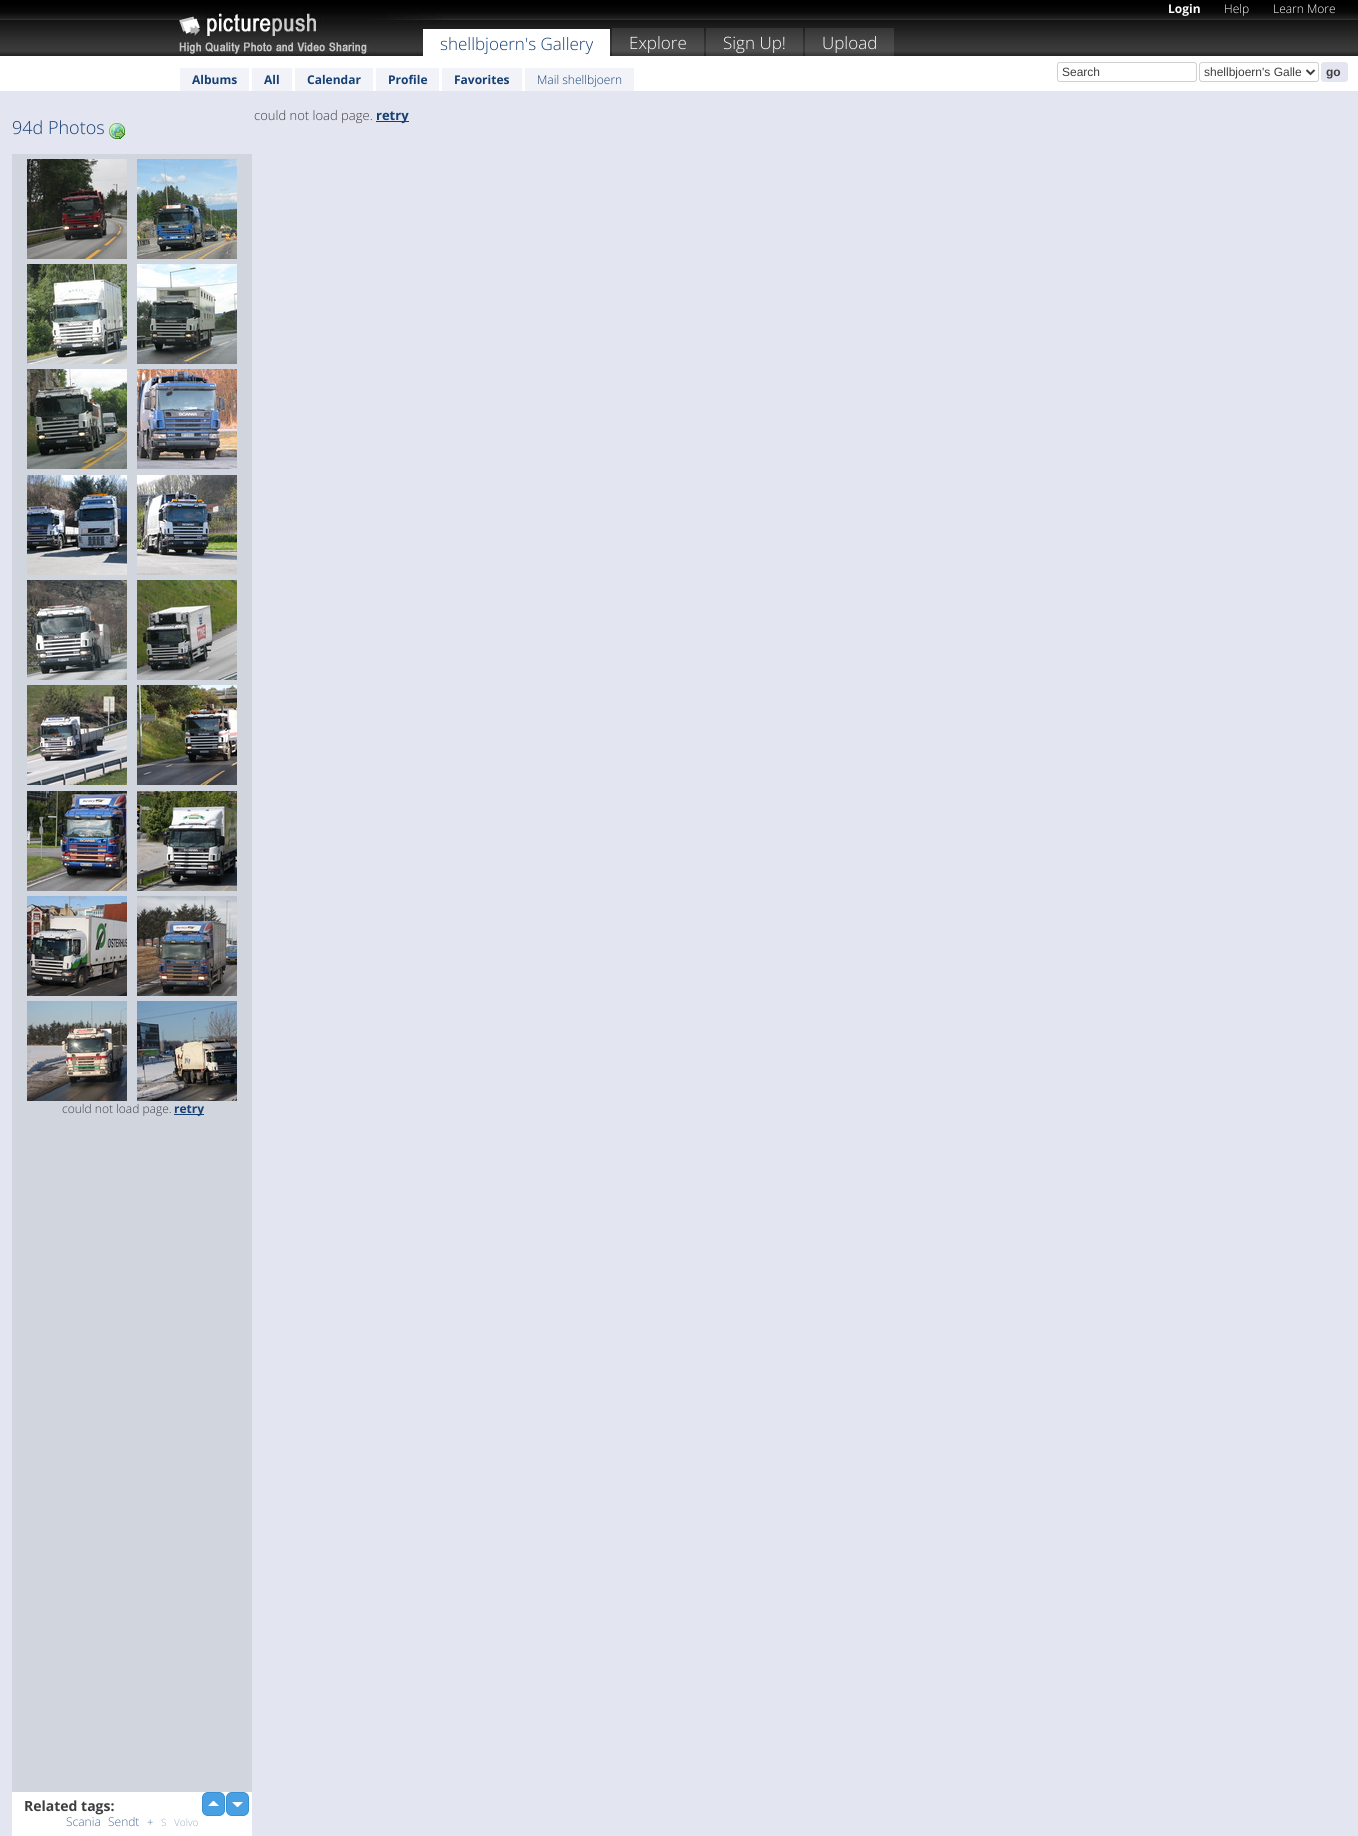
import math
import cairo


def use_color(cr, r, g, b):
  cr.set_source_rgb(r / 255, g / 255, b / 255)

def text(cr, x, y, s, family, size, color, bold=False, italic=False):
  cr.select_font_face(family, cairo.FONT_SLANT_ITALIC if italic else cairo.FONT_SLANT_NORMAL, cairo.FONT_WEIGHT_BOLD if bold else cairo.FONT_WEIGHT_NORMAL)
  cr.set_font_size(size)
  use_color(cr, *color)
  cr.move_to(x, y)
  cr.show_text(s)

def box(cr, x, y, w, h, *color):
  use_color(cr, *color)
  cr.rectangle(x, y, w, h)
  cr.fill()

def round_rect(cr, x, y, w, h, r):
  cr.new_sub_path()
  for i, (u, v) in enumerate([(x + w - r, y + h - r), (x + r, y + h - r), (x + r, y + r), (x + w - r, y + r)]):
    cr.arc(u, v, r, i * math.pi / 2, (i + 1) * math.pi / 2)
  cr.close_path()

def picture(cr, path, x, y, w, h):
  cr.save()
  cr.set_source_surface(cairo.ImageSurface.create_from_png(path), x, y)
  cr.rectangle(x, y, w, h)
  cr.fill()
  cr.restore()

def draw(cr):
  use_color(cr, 227, 230, 241)
  cr.paint()
  picture(cr, "img_01.png", 0, 0, 1358, 56)
  picture(cr, "img_02.png", 179, 8, 264, 48)
  box(cr, 423, 29, 187, 27, 255, 255, 255)
  cr.set_source_rgba(1, 1, 1, 0.1)
  cr.rectangle(612, 28, 92, 28)
  cr.fill()
  cr.rectangle(706, 28, 97, 28)
  cr.fill()
  cr.rectangle(805, 28, 89, 28)
  cr.fill()
  box(cr, 0, 56, 1358, 35, 255, 255, 255)
  box(cr, 180, 68, 69, 23, 241, 243, 249)
  box(cr, 252, 68, 40, 23, 241, 243, 249)
  box(cr, 295, 68, 78, 23, 241, 243, 249)
  box(cr, 376, 68, 63, 23, 241, 243, 249)
  box(cr, 442, 68, 80, 23, 241, 243, 249)
  box(cr, 525, 68, 109, 23, 241, 243, 249)
  round_rect(cr, 1057.5, 62.5, 139, 19, 2.5)
  use_color(cr, 208, 208, 208)
  cr.set_line_width(1)
  cr.stroke()
  round_rect(cr, 1199.5, 62.5, 119, 19, 2.5)
  cr.stroke()
  cr.new_path()
  cr.move_to(1306.5, 70)
  cr.line_to(1310.5, 74)
  cr.line_to(1314.5, 70)
  use_color(cr, 62, 62, 62)
  cr.set_line_width(2)
  cr.stroke()
  use_color(cr, 227, 230, 241)
  round_rect(cr, 1321.5, 62.5, 26, 19, 2.5)
  cr.fill_preserve()
  cr.set_line_width(1)
  cr.stroke()
  box(cr, 376, 121, 33, 1, 22, 63, 115)
  picture(cr, "img_03.png", 109, 123, 16, 16)
  box(cr, 12, 154, 240, 1638, 209, 213, 221)
  picture(cr, "img_04.png", 27, 159, 100, 100)
  picture(cr, "img_05.png", 137, 159, 100, 100)
  picture(cr, "img_06.png", 27, 264, 100, 100)
  picture(cr, "img_07.png", 137, 264, 100, 100)
  picture(cr, "img_08.png", 27, 369, 100, 100)
  picture(cr, "img_09.png", 137, 369, 100, 100)
  picture(cr, "img_10.png", 27, 475, 100, 100)
  picture(cr, "img_11.png", 137, 475, 100, 100)
  picture(cr, "img_12.png", 27, 580, 100, 100)
  picture(cr, "img_13.png", 137, 580, 100, 100)
  picture(cr, "img_14.png", 27, 685, 100, 100)
  picture(cr, "img_15.png", 137, 685, 100, 100)
  picture(cr, "img_16.png", 27, 791, 100, 100)
  picture(cr, "img_17.png", 137, 791, 100, 100)
  picture(cr, "img_18.png", 27, 896, 100, 100)
  picture(cr, "img_19.png", 137, 896, 100, 100)
  picture(cr, "img_20.png", 27, 1001, 100, 100)
  picture(cr, "img_21.png", 137, 1001, 100, 100)
  box(cr, 174, 1114, 30, 1, 22, 63, 115)
  box(cr, 12, 1792, 240, 44, 255, 255, 255)
  use_color(cr, 72, 160, 227)
  round_rect(cr, 202.5, 1792.5, 22, 23, 5.5)
  cr.fill_preserve()
  use_color(cr, 56, 144, 211)
  cr.stroke()
  use_color(cr, 72, 160, 227)
  round_rect(cr, 226.5, 1792.5, 22, 23, 5.5)
  cr.fill_preserve()
  use_color(cr, 56, 144, 211)
  cr.stroke()
  use_color(cr, 255, 255, 255)
  cr.new_path()
  cr.move_to(219, 1806)
  cr.line_to(208, 1806)
  cr.line_to(213, 1801)
  cr.line_to(214, 1801)
  cr.close_path()
  cr.move_to(232, 1802)
  cr.line_to(243, 1802)
  cr.line_to(238, 1807)
  cr.line_to(237, 1807)
  cr.close_path()
  cr.fill()
  text(cr, 440, 50, "shellbjoern's Gallery", "Open Sans Light", 17, (22, 63, 115))
  text(cr, 629, 49, "Explore", "Open Sans Light", 17, (255, 255, 255))
  text(cr, 723, 49, "Sign Up!", "Open Sans Light", 17, (255, 255, 255))
  text(cr, 822, 49, "Upload", "Open Sans Light", 17, (255, 255, 255))
  text(cr, 1168, 13, "Login", "Open Sans", 12, (255, 255, 255), bold=True)
  text(cr, 1224, 13, "Help", "Open Sans Light", 12, (255, 255, 255))
  text(cr, 1273, 13, "Learn More", "Open Sans Light", 12, (255, 255, 255))
  text(cr, 192, 84, "Albums", "Open Sans", 12, (22, 63, 115), bold=True)
  text(cr, 264, 84, "All", "Open Sans", 12, (22, 63, 115), bold=True)
  text(cr, 307, 84, "Calendar", "Open Sans", 12, (22, 63, 115), bold=True)
  text(cr, 388, 84, "Profile", "Open Sans", 12, (22, 63, 115), bold=True)
  text(cr, 454, 84, "Favorites", "Open Sans", 12, (22, 63, 115), bold=True)
  text(cr, 537, 84, "Mail shellbjoern", "Open Sans Light", 12, (22, 63, 115))
  text(cr, 1062, 76, "Search", "Liberation Sans", 12, (62, 62, 65))
  text(cr, 1204, 76, "shellbjoern's Galle", "Liberation Sans", 12, (62, 62, 65))
  text(cr, 1326, 76, "go", "Liberation Sans", 12, (62, 62, 65), bold=True)
  text(cr, 254, 120, "could not load page.", "Open Sans Light", 13, (62, 62, 65))
  text(cr, 376, 120, "retry", "Open Sans", 13, (22, 63, 115), bold=True)
  text(cr, 12, 134, "94d Photos", "Open Sans Light", 18, (22, 63, 115))
  text(cr, 62, 1113, "could not load page.", "Open Sans Light", 12, (62, 62, 65))
  text(cr, 174, 1113, "retry", "Open Sans", 12, (22, 63, 115), bold=True)
  text(cr, 24, 1811, "Related tags:", "Open Sans", 14, (62, 62, 65), bold=True)
  text(cr, 66, 1826, "Scania", "Open Sans Light", 12, (77, 108, 148))
  text(cr, 108, 1826, "Sendt", "Open Sans Light", 12, (77, 108, 148))
  text(cr, 147, 1826, "+", "Open Sans Light", 11, (77, 108, 148))
  text(cr, 161, 1826, "S", "Open Sans Light", 10, (157, 174, 196))
  text(cr, 174, 1826, "Volvo", "Open Sans Light", 10, (157, 174, 196))


surface = cairo.ImageSurface(cairo.FORMAT_RGB24, 1358, 1836)
cr = cairo.Context(surface)
options = cairo.FontOptions()
options.set_hint_metrics(cairo.HINT_METRICS_OFF)
options.set_hint_style(cairo.HINT_STYLE_NONE)
cr.set_font_options(options)
cr.set_miter_limit(4)
draw(cr)
surface.write_to_png("out.png")
